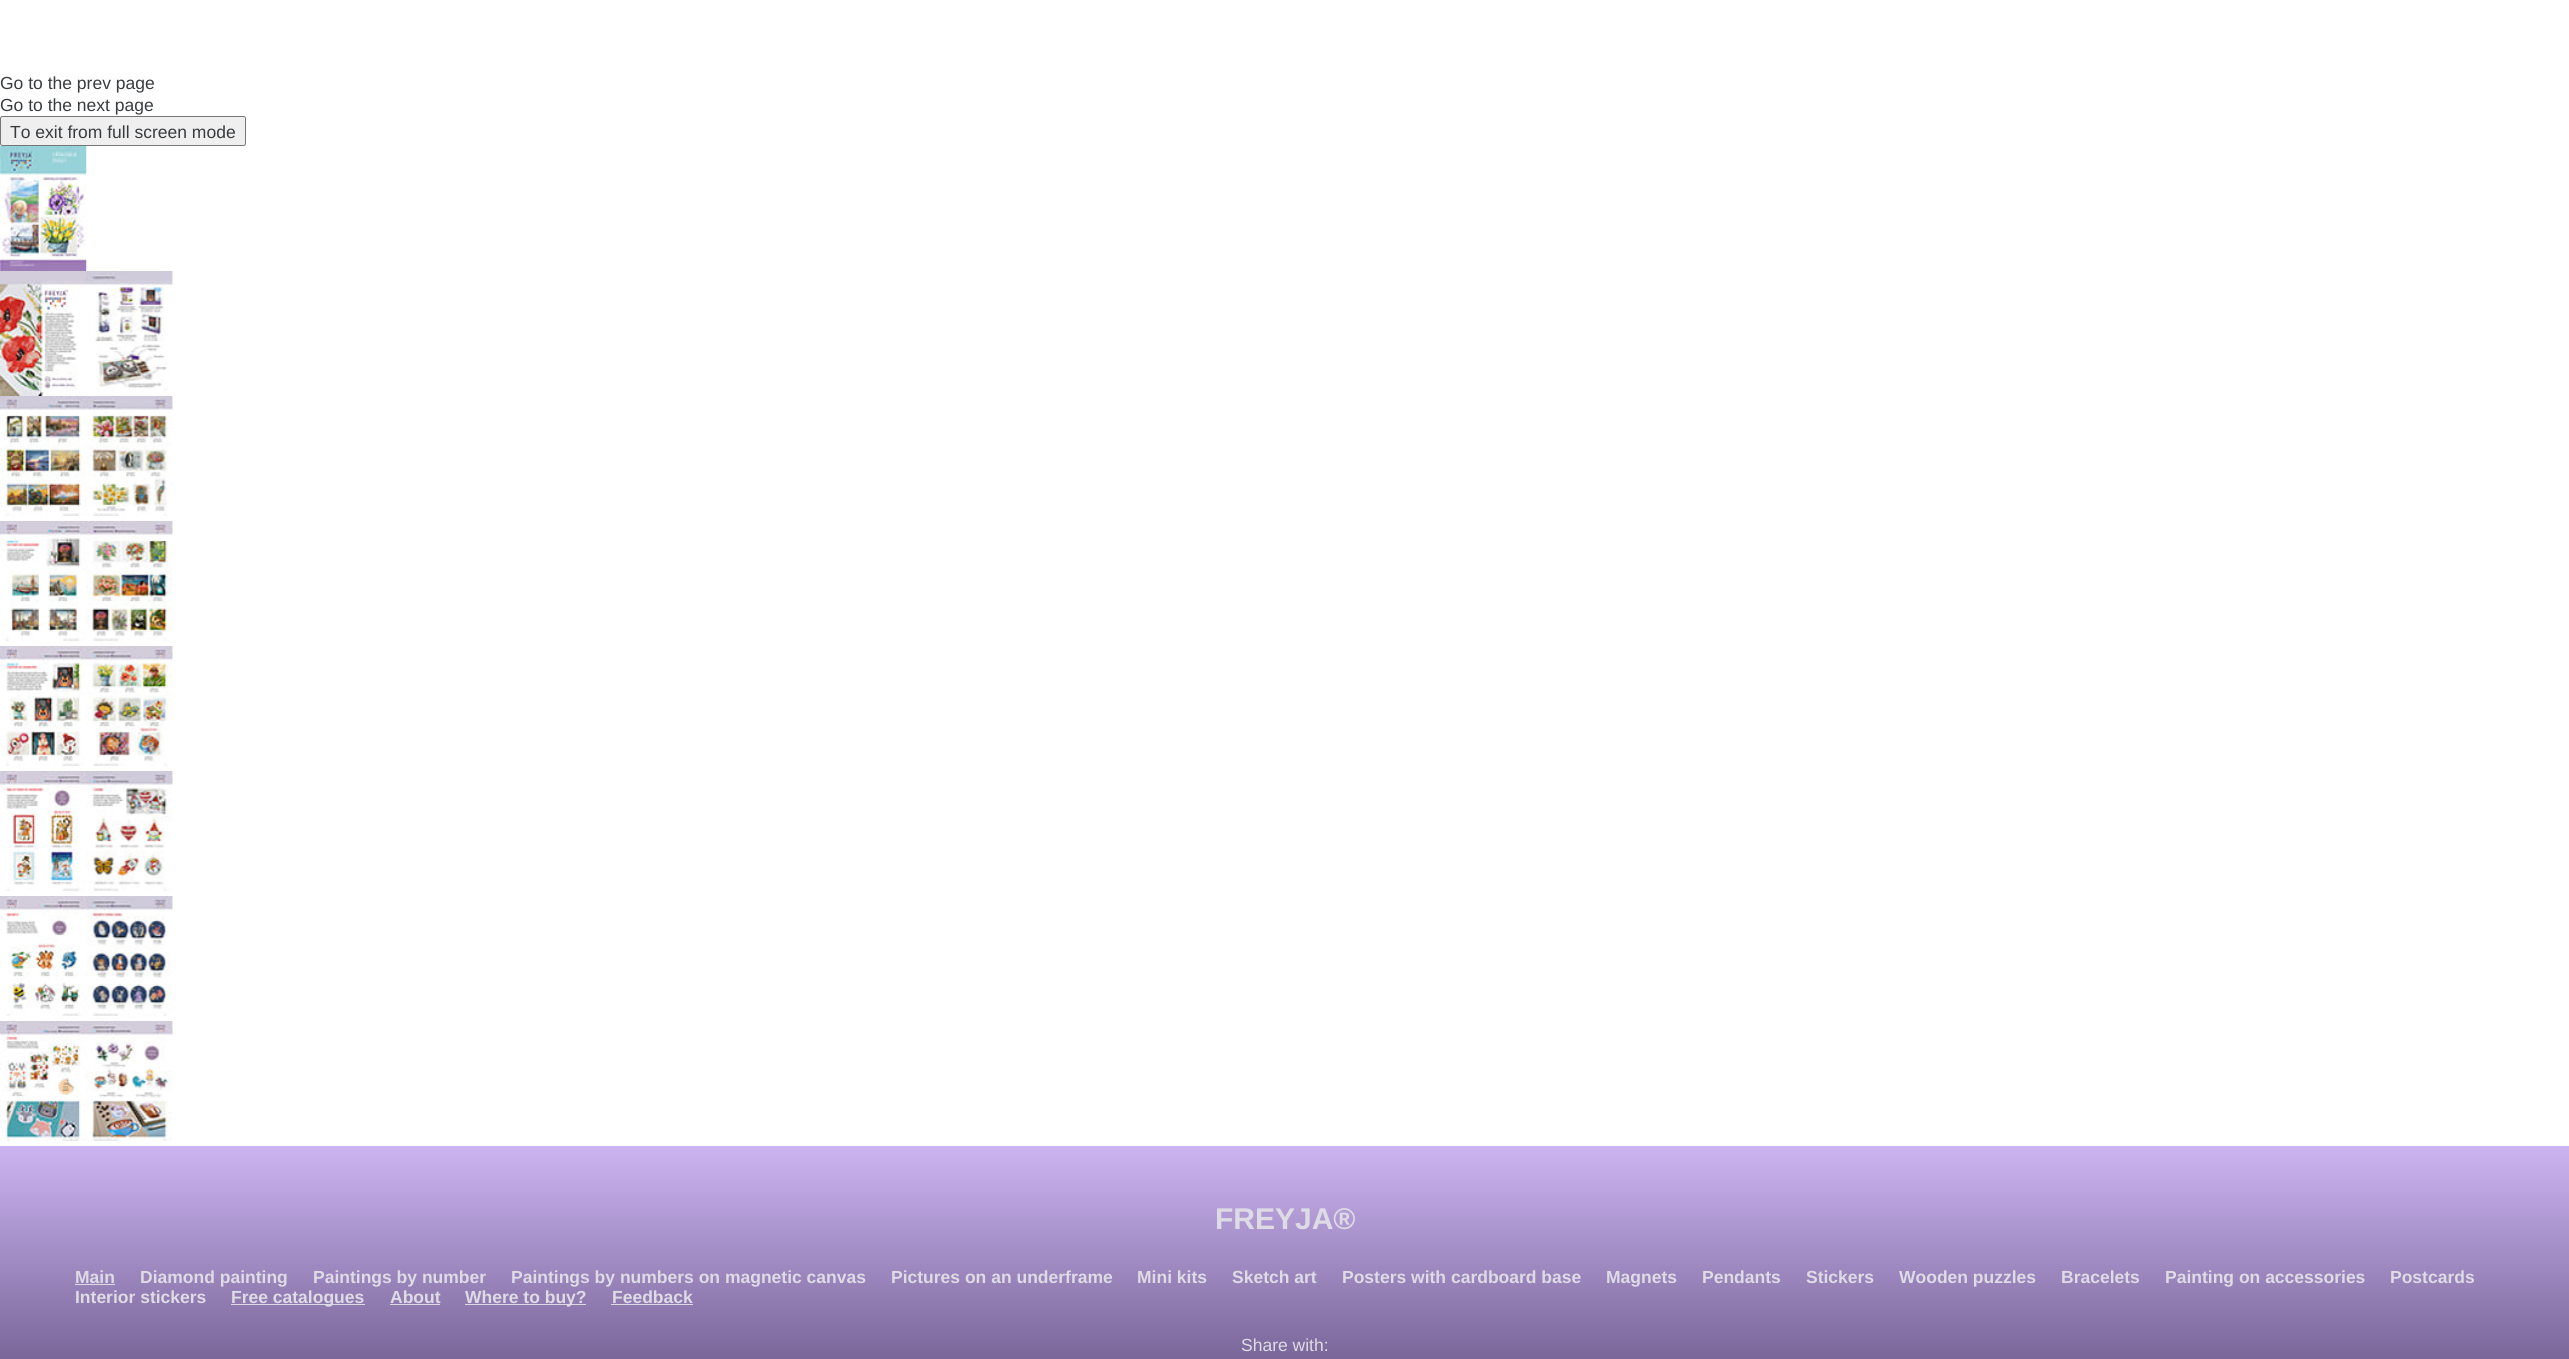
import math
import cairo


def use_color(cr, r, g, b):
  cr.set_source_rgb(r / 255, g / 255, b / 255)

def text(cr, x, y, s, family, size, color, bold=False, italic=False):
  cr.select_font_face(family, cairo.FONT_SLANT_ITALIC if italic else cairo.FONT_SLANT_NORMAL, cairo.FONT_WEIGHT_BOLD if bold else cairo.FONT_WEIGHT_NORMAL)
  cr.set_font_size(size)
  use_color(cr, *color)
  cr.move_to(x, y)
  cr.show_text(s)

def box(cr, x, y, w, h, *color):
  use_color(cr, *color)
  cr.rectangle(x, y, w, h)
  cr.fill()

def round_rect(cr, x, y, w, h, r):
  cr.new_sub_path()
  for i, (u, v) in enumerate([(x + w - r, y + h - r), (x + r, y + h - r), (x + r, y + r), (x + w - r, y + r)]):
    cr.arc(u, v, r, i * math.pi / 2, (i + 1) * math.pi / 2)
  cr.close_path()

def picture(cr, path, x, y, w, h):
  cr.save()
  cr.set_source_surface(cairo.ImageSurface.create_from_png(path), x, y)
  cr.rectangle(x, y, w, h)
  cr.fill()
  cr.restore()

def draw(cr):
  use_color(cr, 255, 255, 255)
  cr.paint()
  use_color(cr, 239, 239, 239)
  round_rect(cr, 0.5, 116.5, 245, 29, 2)
  cr.fill_preserve()
  use_color(cr, 118, 118, 118)
  cr.set_line_width(1)
  cr.stroke()
  picture(cr, "img_01.png", 0, 146, 87, 125)
  picture(cr, "img_02.png", 0, 271, 87, 125)
  picture(cr, "img_03.png", 86, 271, 87, 120)
  picture(cr, "img_04.png", 0, 396, 86, 120)
  picture(cr, "img_05.png", 86, 396, 87, 120)
  picture(cr, "img_06.png", 0, 521, 86, 120)
  picture(cr, "img_07.png", 86, 521, 87, 120)
  picture(cr, "img_08.png", 0, 646, 86, 120)
  picture(cr, "img_09.png", 86, 646, 87, 120)
  picture(cr, "img_10.png", 0, 771, 86, 120)
  picture(cr, "img_11.png", 86, 771, 87, 120)
  picture(cr, "img_12.png", 0, 896, 86, 120)
  picture(cr, "img_13.png", 86, 896, 87, 120)
  picture(cr, "img_14.png", 0, 1021, 86, 120)
  picture(cr, "img_15.png", 86, 1021, 87, 120)
  gradient = cairo.LinearGradient(1285, 1146, 1285, 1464)
  gradient.add_color_stop_rgba(0, 0.8, 0.706, 0.949, 1)
  gradient.add_color_stop_rgba(1, 0.322, 0.255, 0.431, 1)
  cr.set_source(gradient)
  cr.rectangle(0, 1146, 2569, 213)
  cr.fill()
  box(cr, 75, 1284, 40, 1, 222, 218, 228)
  box(cr, 231, 1304, 134, 1, 220, 217, 227)
  box(cr, 390, 1304, 50, 1, 220, 217, 227)
  box(cr, 465, 1304, 121, 1, 220, 217, 227)
  box(cr, 611, 1304, 82, 1, 220, 217, 227)
  text(cr, 0, 89, "Go to the prev page", "Liberation Sans", 17.5, (57, 60, 63))
  text(cr, 0, 111, "Go to the next page", "Liberation Sans", 17.5, (57, 60, 63))
  text(cr, 10, 138, "To exit from full screen mode", "Liberation Sans", 17.5, (57, 60, 63))
  text(cr, 1215, 1229, "FREYJA®", "Liberation Sans", 30, (222, 219, 229), bold=True)
  text(cr, 75, 1283, "Main", "Liberation Sans", 17.5, (222, 219, 229), bold=True)
  text(cr, 140, 1283, "Diamond painting", "Liberation Sans", 17.5, (222, 219, 229), bold=True)
  text(cr, 313, 1283, "Paintings by number", "Liberation Sans", 17.5, (222, 219, 229), bold=True)
  text(cr, 511, 1283, "Paintings by numbers on magnetic canvas", "Liberation Sans", 17.5, (222, 219, 229), bold=True)
  text(cr, 891, 1283, "Pictures on an underframe", "Liberation Sans", 17.5, (222, 219, 229), bold=True)
  text(cr, 1137, 1283, "Mini kits", "Liberation Sans", 17.5, (222, 219, 229), bold=True)
  text(cr, 1232, 1283, "Sketch art", "Liberation Sans", 17.5, (222, 219, 229), bold=True)
  text(cr, 1342, 1283, "Posters with cardboard base", "Liberation Sans", 17.5, (222, 219, 229), bold=True)
  text(cr, 1606, 1283, "Magnets", "Liberation Sans", 17.5, (222, 219, 229), bold=True)
  text(cr, 1702, 1283, "Pendants", "Liberation Sans", 17.5, (222, 219, 229), bold=True)
  text(cr, 1806, 1283, "Stickers", "Liberation Sans", 17.5, (222, 219, 229), bold=True)
  text(cr, 1899, 1283, "Wooden puzzles", "Liberation Sans", 17.5, (222, 219, 229), bold=True)
  text(cr, 2061, 1283, "Bracelets", "Liberation Sans", 17.5, (222, 219, 229), bold=True)
  text(cr, 2165, 1283, "Painting on accessories", "Liberation Sans", 17.5, (222, 219, 229), bold=True)
  text(cr, 2390, 1283, "Postcards", "Liberation Sans", 17.5, (222, 219, 229), bold=True)
  text(cr, 75, 1303, "Interior stickers", "Liberation Sans", 17.5, (222, 219, 229), bold=True)
  text(cr, 231, 1303, "Free catalogues", "Liberation Sans", 17.5, (222, 219, 229), bold=True)
  text(cr, 390, 1303, "About", "Liberation Sans", 17.5, (222, 219, 229), bold=True)
  text(cr, 465, 1303, "Where to buy?", "Liberation Sans", 17.5, (222, 219, 229), bold=True)
  text(cr, 612, 1303, "Feedback", "Liberation Sans", 17.5, (222, 219, 229), bold=True)
  text(cr, 1241, 1351, "Share with:", "Liberation Sans", 17.5, (222, 219, 229))


surface = cairo.ImageSurface(cairo.FORMAT_RGB24, 2569, 1359)
cr = cairo.Context(surface)
options = cairo.FontOptions()
options.set_hint_metrics(cairo.HINT_METRICS_OFF)
options.set_hint_style(cairo.HINT_STYLE_NONE)
cr.set_font_options(options)
cr.set_miter_limit(4)
draw(cr)
surface.write_to_png("out.png")
